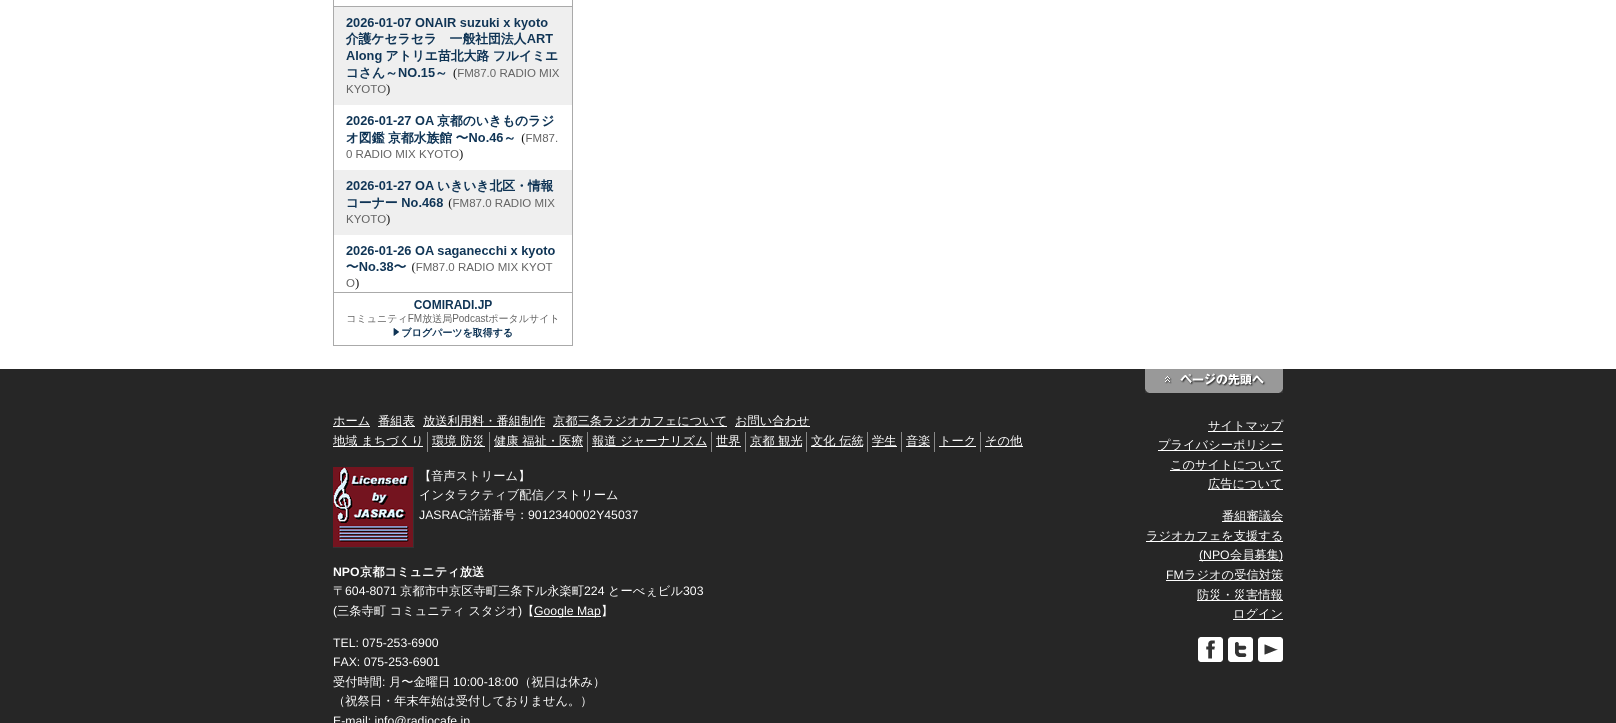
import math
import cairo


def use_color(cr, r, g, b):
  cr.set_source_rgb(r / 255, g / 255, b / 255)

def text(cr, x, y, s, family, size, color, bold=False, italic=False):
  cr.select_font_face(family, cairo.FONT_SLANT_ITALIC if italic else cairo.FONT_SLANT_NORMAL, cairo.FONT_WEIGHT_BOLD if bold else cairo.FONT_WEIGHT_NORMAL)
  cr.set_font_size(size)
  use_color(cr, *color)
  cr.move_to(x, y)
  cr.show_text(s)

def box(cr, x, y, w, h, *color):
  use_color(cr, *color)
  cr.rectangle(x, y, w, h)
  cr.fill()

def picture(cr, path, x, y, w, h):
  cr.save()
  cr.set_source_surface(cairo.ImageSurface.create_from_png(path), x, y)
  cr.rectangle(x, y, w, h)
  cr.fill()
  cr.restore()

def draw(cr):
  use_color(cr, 255, 255, 255)
  cr.paint()
  picture(cr, "img_01.png", 333, 0, 240, 346)
  box(cr, 0, 369, 1616, 354, 38, 38, 38)
  picture(cr, "img_02.png", 1145, 369, 138, 24)
  box(cr, 333, 426, 37, 1, 255, 255, 255)
  box(cr, 378, 426, 37, 1, 255, 255, 255)
  box(cr, 423, 426, 122, 1, 255, 255, 255)
  box(cr, 553, 426, 174, 1, 255, 255, 255)
  box(cr, 735, 426, 75, 1, 255, 255, 255)
  box(cr, 333, 446, 90, 1, 255, 255, 255)
  box(cr, 427, 432, 1, 20, 136, 136, 136)
  box(cr, 432, 446, 53, 1, 255, 255, 255)
  box(cr, 489, 432, 1, 20, 136, 136, 136)
  box(cr, 494, 446, 89, 1, 255, 255, 255)
  box(cr, 587, 432, 1, 20, 136, 136, 136)
  box(cr, 592, 446, 115, 1, 255, 255, 255)
  box(cr, 711, 432, 1, 20, 136, 136, 136)
  box(cr, 716, 446, 25, 1, 255, 255, 255)
  box(cr, 745, 432, 1, 20, 136, 136, 136)
  box(cr, 750, 446, 52, 1, 255, 255, 255)
  box(cr, 806, 432, 1, 20, 136, 136, 136)
  box(cr, 811, 446, 52, 1, 255, 255, 255)
  box(cr, 867, 432, 1, 20, 136, 136, 136)
  box(cr, 872, 446, 25, 1, 255, 255, 255)
  box(cr, 901, 432, 1, 20, 136, 136, 136)
  box(cr, 906, 446, 24, 1, 255, 255, 255)
  box(cr, 934, 432, 1, 20, 136, 136, 136)
  box(cr, 939, 446, 37, 1, 255, 255, 255)
  box(cr, 980, 432, 1, 20, 136, 136, 136)
  box(cr, 985, 446, 38, 1, 255, 255, 255)
  picture(cr, "img_03.png", 333, 467, 81, 81)
  box(cr, 534, 616, 67, 1, 255, 255, 255)
  box(cr, 1208, 431, 75, 1, 255, 255, 255)
  box(cr, 1158, 450, 125, 1, 255, 255, 255)
  box(cr, 1170, 470, 113, 1, 255, 255, 255)
  box(cr, 1208, 489, 75, 1, 255, 255, 255)
  box(cr, 1222, 521, 61, 1, 255, 255, 255)
  box(cr, 1146, 541, 137, 1, 255, 255, 255)
  box(cr, 1199, 560, 84, 1, 255, 255, 255)
  box(cr, 1166, 580, 117, 1, 255, 255, 255)
  box(cr, 1197, 600, 86, 1, 255, 255, 255)
  box(cr, 1233, 619, 50, 1, 255, 255, 255)
  picture(cr, "img_04.png", 1198, 637, 25, 25)
  picture(cr, "img_05.png", 1228, 637, 25, 25)
  picture(cr, "img_06.png", 1258, 637, 25, 25)
  text(cr, 333, 425, "ホーム", "WenQuanYi Zen Hei Medium", 12.25, (255, 255, 255))
  text(cr, 378, 425, "番組表", "WenQuanYi Zen Hei Medium", 12.25, (255, 255, 255))
  text(cr, 423, 425, "放送利用料・番組制作", "WenQuanYi Zen Hei Medium", 12.25, (255, 255, 255))
  text(cr, 553, 425, "京都三条ラジオカフェについて", "WenQuanYi Zen Hei Medium", 12.25, (255, 255, 255))
  text(cr, 735, 425, "お問い合わせ", "WenQuanYi Zen Hei Medium", 12.25, (255, 255, 255))
  text(cr, 333, 445, "地域 まちづくり", "WenQuanYi Zen Hei Medium", 12.25, (255, 255, 255))
  text(cr, 432, 445, "環境 防災", "WenQuanYi Zen Hei Medium", 12.25, (255, 255, 255))
  text(cr, 494, 445, "健康 福祉・医療", "WenQuanYi Zen Hei Medium", 12.25, (255, 255, 255))
  text(cr, 592, 445, "報道 ジャーナリズム", "WenQuanYi Zen Hei Medium", 12.25, (255, 255, 255))
  text(cr, 716, 445, "世界", "WenQuanYi Zen Hei Medium", 12.25, (255, 255, 255))
  text(cr, 750, 445, "京都 観光", "WenQuanYi Zen Hei Medium", 12.25, (255, 255, 255))
  text(cr, 811, 445, "文化 伝統", "WenQuanYi Zen Hei Medium", 12.25, (255, 255, 255))
  text(cr, 872, 445, "学生", "WenQuanYi Zen Hei Medium", 12.25, (255, 255, 255))
  text(cr, 906, 445, "音楽", "WenQuanYi Zen Hei Medium", 12.25, (255, 255, 255))
  text(cr, 939, 445, "トーク", "WenQuanYi Zen Hei Medium", 12.25, (255, 255, 255))
  text(cr, 985, 445, "その他", "WenQuanYi Zen Hei Medium", 12.25, (255, 255, 255))
  text(cr, 419, 480, "【音声ストリーム】", "WenQuanYi Zen Hei Medium", 12.25, (255, 255, 255))
  text(cr, 419, 499, "インタラクティブ配信／ストリーム", "WenQuanYi Zen Hei Medium", 12.25, (255, 255, 255))
  text(cr, 419, 519, "JASRAC", "Liberation Sans", 12.25, (255, 255, 255))
  text(cr, 467, 519, "許諾番号：", "WenQuanYi Zen Hei Medium", 12.25, (255, 255, 255))
  text(cr, 528, 519, "9012340002Y45037", "Liberation Sans", 12.25, (255, 255, 255))
  text(cr, 333, 576, "NPO", "Liberation Sans", 12.25, (255, 255, 255), bold=True)
  text(cr, 360, 576, "京都コミュニティ放送", "WenQuanYi Zen Hei", 12.25, (255, 255, 255), bold=True)
  text(cr, 333, 595, "〒", "WenQuanYi Zen Hei Medium", 12.25, (255, 255, 255))
  text(cr, 345, 595, "604-8071", "Liberation Sans", 12.25, (255, 255, 255))
  text(cr, 400, 595, "京都市中京区寺町三条下ル永楽町", "WenQuanYi Zen Hei Medium", 12.25, (255, 255, 255))
  text(cr, 584, 595, "224", "Liberation Sans", 12.25, (255, 255, 255))
  text(cr, 608, 595, "とーべぇビル", "WenQuanYi Zen Hei Medium", 12.25, (255, 255, 255))
  text(cr, 683, 595, "303", "Liberation Sans", 12.25, (255, 255, 255))
  text(cr, 333, 615, "(", "Liberation Sans", 12.25, (255, 255, 255))
  text(cr, 337, 615, "三条寺町 コミュニティ スタジオ", "WenQuanYi Zen Hei Medium", 12.25, (255, 255, 255))
  text(cr, 518, 615, ")", "Liberation Sans", 12.25, (255, 255, 255))
  text(cr, 522, 615, "【", "WenQuanYi Zen Hei Medium", 12.25, (255, 255, 255))
  text(cr, 534, 615, "Google Map", "Liberation Sans", 12.25, (255, 255, 255))
  text(cr, 601, 615, "】", "WenQuanYi Zen Hei Medium", 12.25, (255, 255, 255))
  text(cr, 333, 647, "TEL: 075-253-6900", "Liberation Sans", 12.25, (255, 255, 255))
  text(cr, 333, 666, "FAX: 075-253-6901", "Liberation Sans", 12.25, (255, 255, 255))
  text(cr, 333, 686, "受付時間", "WenQuanYi Zen Hei Medium", 12.25, (255, 255, 255))
  text(cr, 382, 686, ":", "Liberation Sans", 12.25, (255, 255, 255))
  text(cr, 389, 686, "月〜金曜日", "WenQuanYi Zen Hei Medium", 12.25, (255, 255, 255))
  text(cr, 453, 686, "10:00-18:00", "Liberation Sans", 12.25, (255, 255, 255))
  text(cr, 519, 686, "（祝日は休み）", "WenQuanYi Zen Hei Medium", 12.25, (255, 255, 255))
  text(cr, 333, 705, "（祝祭日・年末年始は受付しておりません。）", "WenQuanYi Zen Hei Medium", 12.25, (255, 255, 255))
  text(cr, 333, 725, "E-mail: info@radiocafe.jp", "Liberation Sans", 12.25, (255, 255, 255))
  text(cr, 1208, 430, "サイトマップ", "WenQuanYi Zen Hei Medium", 12.25, (255, 255, 255))
  text(cr, 1158, 449, "プライバシーポリシー", "WenQuanYi Zen Hei Medium", 12.25, (255, 255, 255))
  text(cr, 1170, 469, "このサイトについて", "WenQuanYi Zen Hei Medium", 12.25, (255, 255, 255))
  text(cr, 1208, 488, "広告について", "WenQuanYi Zen Hei Medium", 12.25, (255, 255, 255))
  text(cr, 1222, 520, "番組審議会", "WenQuanYi Zen Hei Medium", 12.25, (255, 255, 255))
  text(cr, 1146, 540, "ラジオカフェを支援する", "WenQuanYi Zen Hei Medium", 12.25, (255, 255, 255))
  text(cr, 1199, 559, "(NPO", "Liberation Sans", 12.25, (255, 255, 255))
  text(cr, 1230, 559, "会員募集", "WenQuanYi Zen Hei Medium", 12.25, (255, 255, 255))
  text(cr, 1279, 559, ")", "Liberation Sans", 12.25, (255, 255, 255))
  text(cr, 1166, 579, "FM", "Liberation Sans", 12.25, (255, 255, 255))
  text(cr, 1184, 579, "ラジオの受信対策", "WenQuanYi Zen Hei Medium", 12.25, (255, 255, 255))
  text(cr, 1197, 599, "防災・災害情報", "WenQuanYi Zen Hei Medium", 12.25, (255, 255, 255))
  text(cr, 1233, 618, "ログイン", "WenQuanYi Zen Hei Medium", 12.25, (255, 255, 255))


surface = cairo.ImageSurface(cairo.FORMAT_RGB24, 1616, 723)
cr = cairo.Context(surface)
options = cairo.FontOptions()
options.set_hint_metrics(cairo.HINT_METRICS_OFF)
options.set_hint_style(cairo.HINT_STYLE_NONE)
cr.set_font_options(options)
cr.set_miter_limit(4)
draw(cr)
surface.write_to_png("out.png")
